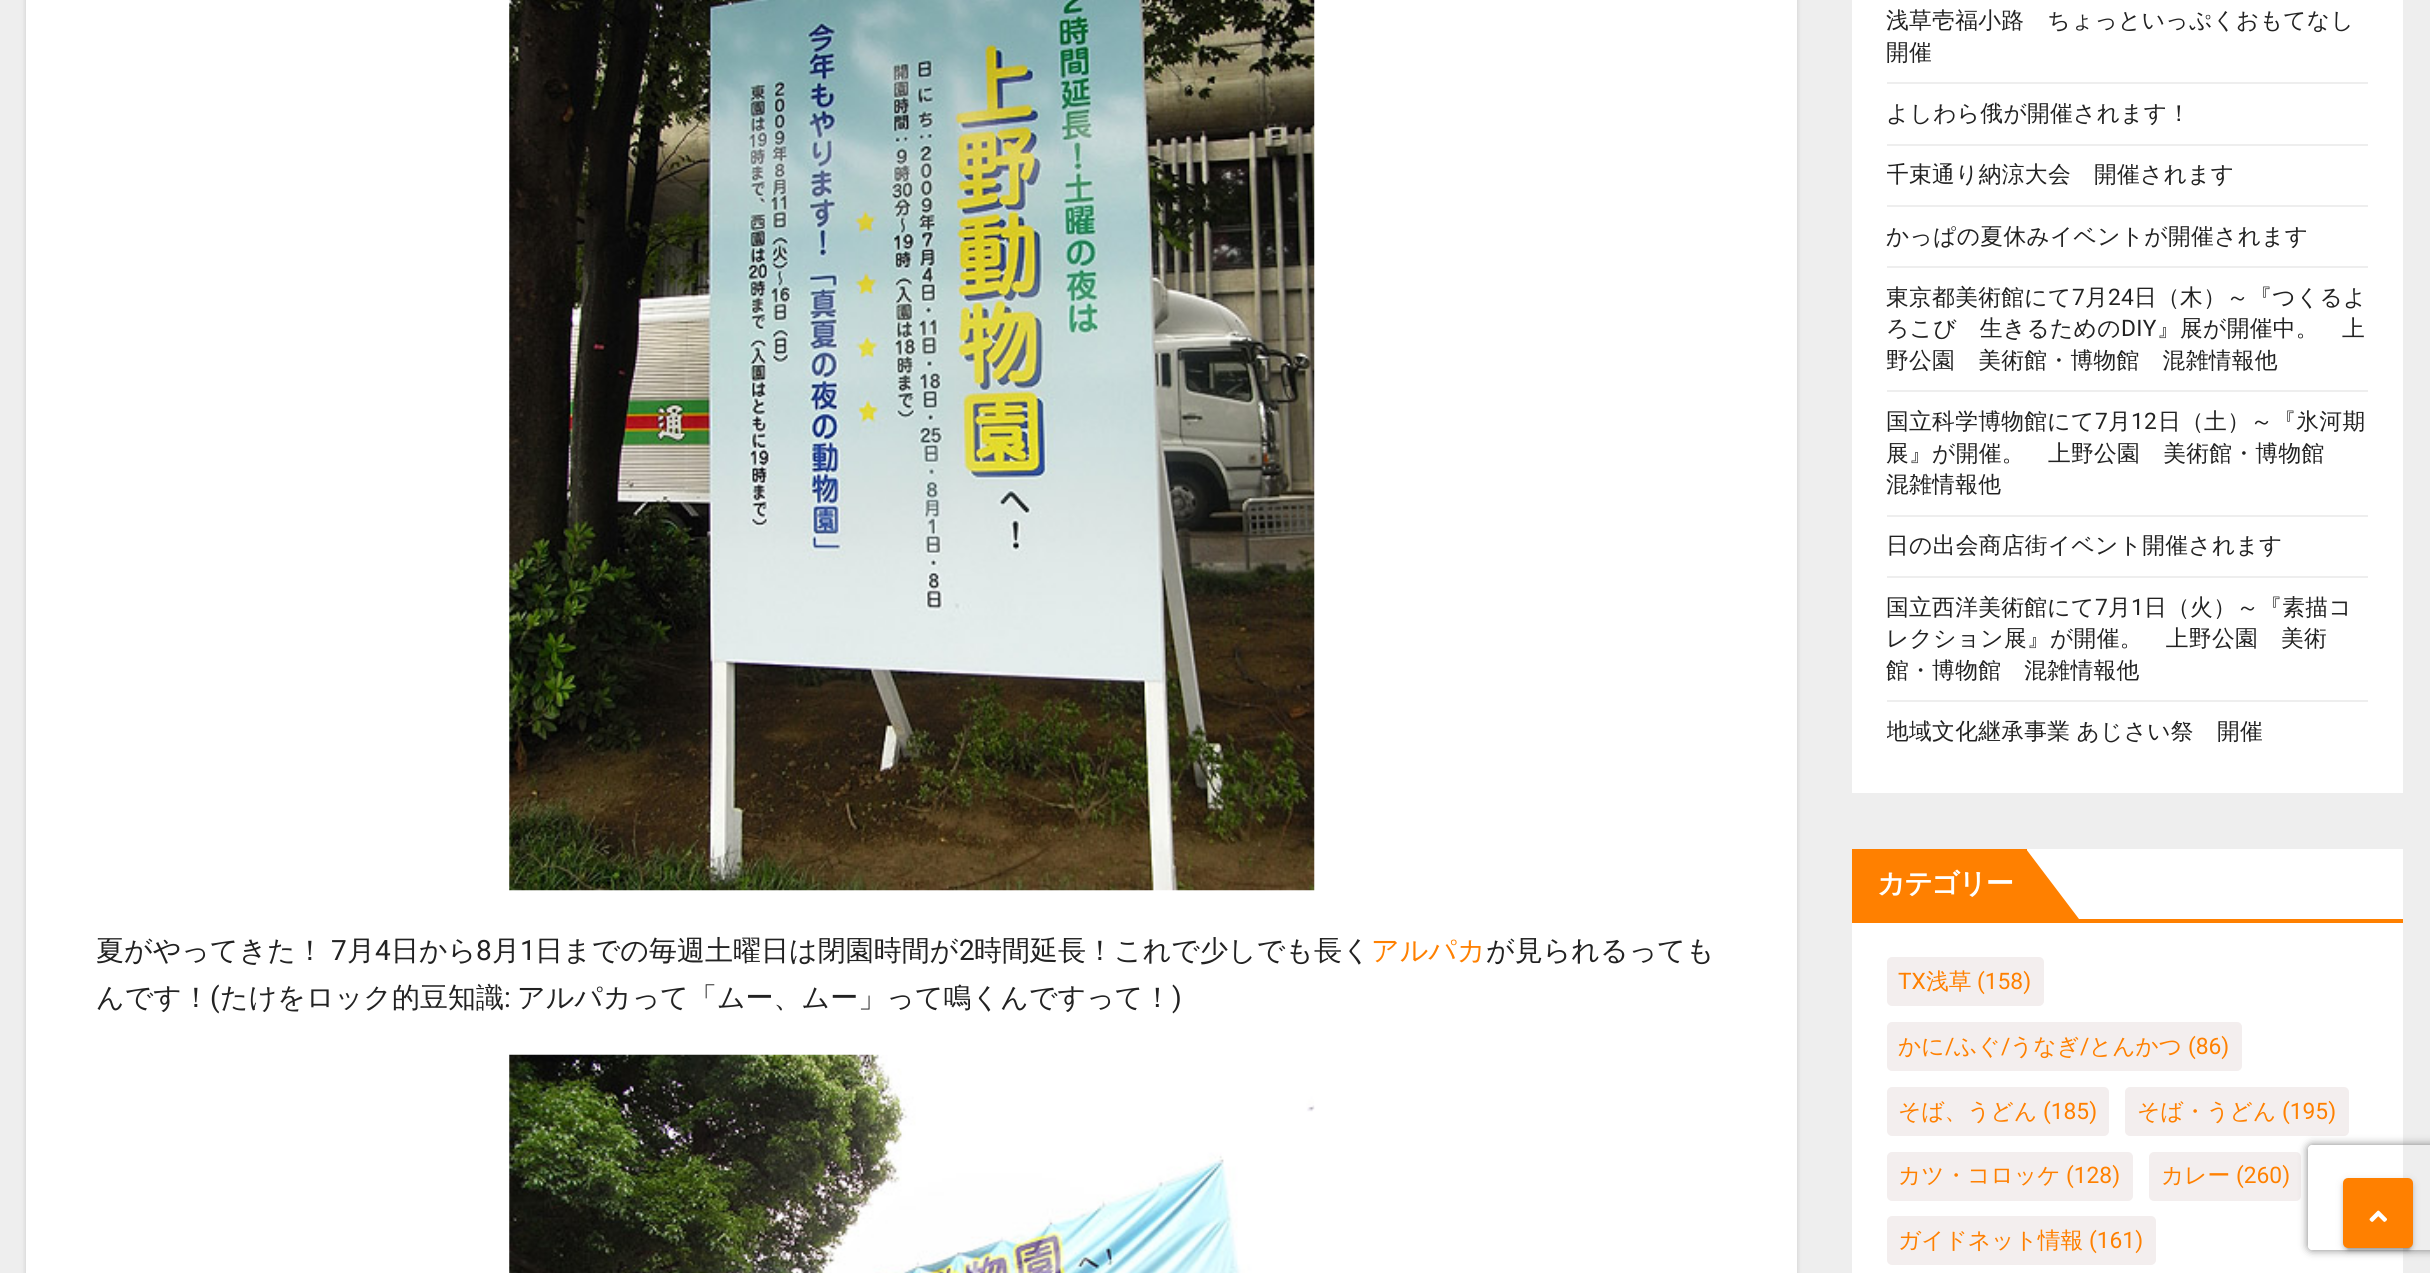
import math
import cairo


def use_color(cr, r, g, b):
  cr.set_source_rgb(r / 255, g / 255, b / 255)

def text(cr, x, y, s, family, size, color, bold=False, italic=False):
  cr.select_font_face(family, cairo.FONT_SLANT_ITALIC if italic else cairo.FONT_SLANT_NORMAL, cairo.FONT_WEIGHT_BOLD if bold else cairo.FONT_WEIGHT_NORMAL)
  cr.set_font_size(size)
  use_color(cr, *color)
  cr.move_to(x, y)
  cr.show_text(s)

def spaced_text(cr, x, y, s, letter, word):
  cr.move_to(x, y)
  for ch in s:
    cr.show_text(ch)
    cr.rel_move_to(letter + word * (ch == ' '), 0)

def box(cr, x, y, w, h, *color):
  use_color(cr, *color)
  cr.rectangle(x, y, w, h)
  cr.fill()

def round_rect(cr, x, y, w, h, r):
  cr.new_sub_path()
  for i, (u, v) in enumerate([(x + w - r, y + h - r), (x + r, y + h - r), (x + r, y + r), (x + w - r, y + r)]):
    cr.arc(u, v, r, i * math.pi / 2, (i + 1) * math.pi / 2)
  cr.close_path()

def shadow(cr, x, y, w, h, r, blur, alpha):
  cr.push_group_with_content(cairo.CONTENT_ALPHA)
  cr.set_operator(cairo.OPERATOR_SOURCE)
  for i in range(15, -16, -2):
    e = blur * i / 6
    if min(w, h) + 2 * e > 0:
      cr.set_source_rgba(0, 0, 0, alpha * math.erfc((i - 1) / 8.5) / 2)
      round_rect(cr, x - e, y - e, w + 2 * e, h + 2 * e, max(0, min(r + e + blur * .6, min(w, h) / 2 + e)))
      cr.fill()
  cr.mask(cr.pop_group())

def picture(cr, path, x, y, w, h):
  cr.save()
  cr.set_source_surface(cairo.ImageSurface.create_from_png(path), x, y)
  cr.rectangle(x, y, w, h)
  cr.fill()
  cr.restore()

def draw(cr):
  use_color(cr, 238, 238, 238)
  cr.paint()
  use_color(cr, 0, 0, 0)
  shadow(cr, 26, -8, 1771, 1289, 0, 2.5, 0.15)
  box(cr, 26, 0, 1771, 1273, 255, 255, 255)
  picture(cr, "img_01.png", 509, 0, 806, 891)
  picture(cr, "img_02.png", 509, 1054, 806, 219)
  box(cr, 1852, 0, 551, 793, 255, 255, 255)
  box(cr, 1887, 82, 481, 2, 238, 238, 238)
  box(cr, 1887, 144, 481, 2, 238, 238, 238)
  box(cr, 1887, 205, 481, 2, 238, 238, 238)
  box(cr, 1887, 266, 481, 2, 238, 238, 238)
  box(cr, 1887, 390, 481, 2, 238, 238, 238)
  box(cr, 1887, 515, 481, 2, 238, 238, 238)
  box(cr, 1887, 576, 481, 2, 238, 238, 238)
  box(cr, 1887, 700, 481, 2, 238, 238, 238)
  box(cr, 1852, 849, 551, 424, 255, 255, 255)
  box(cr, 1852, 919, 551, 4, 255, 128, 0)
  box(cr, 1852, 849, 175, 70, 255, 128, 0)
  cr.new_path()
  cr.move_to(2026, 919)
  cr.line_to(2026, 849)
  cr.line_to(2079, 919)
  cr.close_path()
  cr.fill()
  use_color(cr, 243, 238, 238)
  round_rect(cr, 1888, 958, 155, 47, 4)
  cr.fill_preserve()
  cr.stroke()
  round_rect(cr, 1888, 1023, 353, 47, 4)
  cr.fill_preserve()
  cr.stroke()
  round_rect(cr, 1888, 1088, 220, 47, 4)
  cr.fill_preserve()
  cr.stroke()
  round_rect(cr, 2126, 1088, 222, 47, 4)
  cr.fill_preserve()
  cr.stroke()
  round_rect(cr, 1888, 1153, 244, 47, 4)
  cr.fill_preserve()
  cr.stroke()
  round_rect(cr, 2150, 1153, 150, 47, 4)
  cr.fill_preserve()
  cr.stroke()
  round_rect(cr, 1888, 1217, 267, 47, 4)
  cr.fill_preserve()
  cr.stroke()
  cr.save()
  cr.set_fill_rule(cairo.FILL_RULE_EVEN_ODD)
  cr.new_path()
  cr.move_to(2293, 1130)
  cr.line_to(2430, 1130)
  cr.line_to(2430, 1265)
  cr.line_to(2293, 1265)
  cr.close_path()
  cr.move_to(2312, 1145)
  cr.line_to(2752, 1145)
  cr.curve_to(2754, 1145, 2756, 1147, 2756, 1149)
  cr.line_to(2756, 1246)
  cr.curve_to(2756, 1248, 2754, 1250, 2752, 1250)
  cr.line_to(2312, 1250)
  cr.curve_to(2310, 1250, 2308, 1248, 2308, 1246)
  cr.line_to(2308, 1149)
  cr.curve_to(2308, 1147, 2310, 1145, 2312, 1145)
  cr.close_path()
  cr.clip()
  use_color(cr, 128, 128, 128)
  shadow(cr, 2308, 1145, 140, 105, 4, 4.5, 1)
  cr.restore()
  use_color(cr, 0, 0, 0)
  shadow(cr, 2343, 1180, 70, 70, 5, 4.5, 0.12)
  shadow(cr, 2347, 1187, 63, 63, 2, 1, 0.2)
  shadow(cr, 2343, 1181, 70, 70, 5, 2, 0.14)
  use_color(cr, 255, 128, 0)
  round_rect(cr, 2345, 1180, 66, 66, 3)
  cr.fill_preserve()
  cr.set_line_width(4)
  cr.stroke()
  picture(cr, "img_03.png", 2369, 1210, 18, 12)
  text(cr, 96, 960, "夏がやってきた！", "WenQuanYi Zen Hei Medium", 28, (34, 34, 34))
  text(cr, 331, 960, "7", "Roboto", 28, (34, 34, 34))
  text(cr, 347, 960, "月", "WenQuanYi Zen Hei Medium", 28, (34, 34, 34))
  text(cr, 375, 960, "4", "Roboto", 28, (34, 34, 34))
  text(cr, 391, 960, "日から", "WenQuanYi Zen Hei Medium", 28, (34, 34, 34))
  text(cr, 476, 960, "8", "Roboto", 28, (34, 34, 34))
  text(cr, 492, 960, "月", "WenQuanYi Zen Hei Medium", 28, (34, 34, 34))
  text(cr, 520, 960, "1", "Roboto", 28, (34, 34, 34))
  text(cr, 535, 960, "日までの毎週土曜日は閉園時間が", "WenQuanYi Zen Hei Medium", 28, (34, 34, 34))
  text(cr, 959, 960, "2", "Roboto", 28, (34, 34, 34))
  text(cr, 974, 960, "時間延長！これで少しでも長く", "WenQuanYi Zen Hei Medium", 28, (34, 34, 34))
  text(cr, 1371, 960, "アルパカ", "WenQuanYi Zen Hei Medium", 28, (255, 128, 0))
  text(cr, 1486, 960, "が見られるっても", "WenQuanYi Zen Hei Medium", 28, (34, 34, 34))
  text(cr, 96, 1007, "んです！", "WenQuanYi Zen Hei Medium", 28, (34, 34, 34))
  text(cr, 210, 1007, "(", "Roboto", 28, (34, 34, 34))
  text(cr, 220, 1007, "たけをロック的豆知識", "WenQuanYi Zen Hei Medium", 28, (34, 34, 34))
  text(cr, 504, 1007, ":", "Roboto", 28, (34, 34, 34))
  text(cr, 517, 1007, "アルパカって「ムー、ムー」って鳴くんですって！", "WenQuanYi Zen Hei Medium", 28, (34, 34, 34))
  text(cr, 1172, 1007, ")", "Roboto", 28, (34, 34, 34))
  cr.select_font_face("WenQuanYi Zen Hei Medium")
  cr.set_font_size(22.75)
  spaced_text(cr, 1886, 28, "浅草壱福小路　ちょっといっぷくおもてなし", 0.3, 0)
  spaced_text(cr, 1886, 60, "開催", 0.3, 0)
  spaced_text(cr, 1886, 121, "よしわら俄が開催されます！", 0.3, 0)
  cr.save()
  cr.rectangle(1887, 145, 481, 60)
  cr.clip()
  spaced_text(cr, 1886, 182, "千束通り納涼大会　開催されます", 0.3, 0)
  cr.restore()
  spaced_text(cr, 1886, 244, "かっぱの夏休みイベントが開催されます", 0.3, 0)
  spaced_text(cr, 1886, 305, "東京都美術館にて", 0.3, 0)
  cr.select_font_face("Roboto")
  spaced_text(cr, 2072, 305, "7", 0.3, 0)
  cr.select_font_face("WenQuanYi Zen Hei Medium")
  spaced_text(cr, 2085, 305, "月", 0.3, 0)
  cr.select_font_face("Roboto")
  spaced_text(cr, 2108, 305, "24", 0.3, 0)
  cr.select_font_face("WenQuanYi Zen Hei Medium")
  spaced_text(cr, 2134, 305, "日（木）～『つくるよ", 0.3, 0)
  spaced_text(cr, 1886, 336, "ろこび　生きるための", 0.3, 0)
  cr.select_font_face("Roboto")
  spaced_text(cr, 2121, 336, "DIY", 0.3, 0)
  cr.select_font_face("WenQuanYi Zen Hei Medium")
  spaced_text(cr, 2157, 336, "』展が開催中。　上", 0.3, 0)
  spaced_text(cr, 1886, 368, "野公園　美術館・博物館　混雑情報他", 0.3, 0)
  spaced_text(cr, 1886, 429, "国立科学博物館にて", 0.3, 0)
  cr.select_font_face("Roboto")
  spaced_text(cr, 2095, 429, "7", 0.3, 0)
  cr.select_font_face("WenQuanYi Zen Hei Medium")
  spaced_text(cr, 2108, 429, "月", 0.3, 0)
  cr.select_font_face("Roboto")
  spaced_text(cr, 2131, 429, "12", 0.3, 0)
  cr.select_font_face("WenQuanYi Zen Hei Medium")
  spaced_text(cr, 2158, 429, "日（土）～『氷河期", 0.3, 0)
  spaced_text(cr, 1886, 461, "展』が開催。　上野公園　美術館・博物館", 0.3, 0)
  spaced_text(cr, 1886, 492, "混雑情報他", 0.3, 0)
  spaced_text(cr, 1886, 553, "日の出会商店街イベント開催されます", 0.3, 0)
  spaced_text(cr, 1886, 615, "国立西洋美術館にて", 0.3, 0)
  cr.select_font_face("Roboto")
  spaced_text(cr, 2095, 615, "7", 0.3, 0)
  cr.select_font_face("WenQuanYi Zen Hei Medium")
  spaced_text(cr, 2108, 615, "月", 0.3, 0)
  cr.select_font_face("Roboto")
  spaced_text(cr, 2131, 615, "1", 0.3, 0)
  cr.select_font_face("WenQuanYi Zen Hei Medium")
  spaced_text(cr, 2144, 615, "日（火）～『素描コ", 0.3, 0)
  spaced_text(cr, 1886, 646, "レクション展』が開催。　上野公園　美術", 0.3, 0)
  spaced_text(cr, 1886, 678, "館・博物館　混雑情報他", 0.3, 0)
  cr.save()
  cr.rectangle(1887, 702, 481, 45)
  cr.clip()
  spaced_text(cr, 1886, 739, "地域文化継承事業 あじさい祭　開催", 0.3, -1)
  cr.restore()
  cr.select_font_face("WenQuanYi Zen Hei", cairo.FONT_SLANT_NORMAL, cairo.FONT_WEIGHT_BOLD)
  cr.set_font_size(28)
  use_color(cr, 255, 255, 255)
  spaced_text(cr, 1877, 893, "カテゴリー", -1.5, 0)
  text(cr, 1898, 989, "TX", "Roboto", 22.75, (255, 128, 0))
  text(cr, 1926, 989, "浅草", "WenQuanYi Zen Hei Medium", 22.75, (255, 128, 0))
  text(cr, 1977, 989, "(158)", "Roboto", 22.75, (255, 128, 0))
  text(cr, 1898, 1054, "かに", "WenQuanYi Zen Hei Medium", 22.75, (255, 128, 0))
  text(cr, 1945, 1054, "/", "Roboto", 22.75, (255, 128, 0))
  text(cr, 1954, 1054, "ふぐ", "WenQuanYi Zen Hei Medium", 22.75, (255, 128, 0))
  text(cr, 2001, 1054, "/", "Roboto", 22.75, (255, 128, 0))
  text(cr, 2010, 1054, "うなぎ", "WenQuanYi Zen Hei Medium", 22.75, (255, 128, 0))
  text(cr, 2080, 1054, "/", "Roboto", 22.75, (255, 128, 0))
  text(cr, 2089, 1054, "とんかつ", "WenQuanYi Zen Hei Medium", 22.75, (255, 128, 0))
  text(cr, 2188, 1054, "(86)", "Roboto", 22.75, (255, 128, 0))
  text(cr, 1898, 1119, "そば、うどん", "WenQuanYi Zen Hei Medium", 22.75, (255, 128, 0))
  text(cr, 2043, 1119, "(185)", "Roboto", 22.75, (255, 128, 0))
  text(cr, 2137, 1119, "そば・うどん", "WenQuanYi Zen Hei Medium", 22.75, (255, 128, 0))
  text(cr, 2282, 1119, "(195)", "Roboto", 22.75, (255, 128, 0))
  text(cr, 1898, 1183, "カツ・コロッケ", "WenQuanYi Zen Hei Medium", 22.75, (255, 128, 0))
  text(cr, 2066, 1183, "(128)", "Roboto", 22.75, (255, 128, 0))
  text(cr, 2161, 1183, "カレー", "WenQuanYi Zen Hei Medium", 22.75, (255, 128, 0))
  text(cr, 2236, 1183, "(260)", "Roboto", 22.75, (255, 128, 0))
  text(cr, 1898, 1248, "ガイドネット情報", "WenQuanYi Zen Hei Medium", 22.75, (255, 128, 0))
  text(cr, 2089, 1248, "(161)", "Roboto", 22.75, (255, 128, 0))


surface = cairo.ImageSurface(cairo.FORMAT_RGB24, 2430, 1273)
cr = cairo.Context(surface)
options = cairo.FontOptions()
options.set_hint_metrics(cairo.HINT_METRICS_OFF)
options.set_hint_style(cairo.HINT_STYLE_NONE)
cr.set_font_options(options)
cr.set_miter_limit(4)
draw(cr)
surface.write_to_png("out.png")
